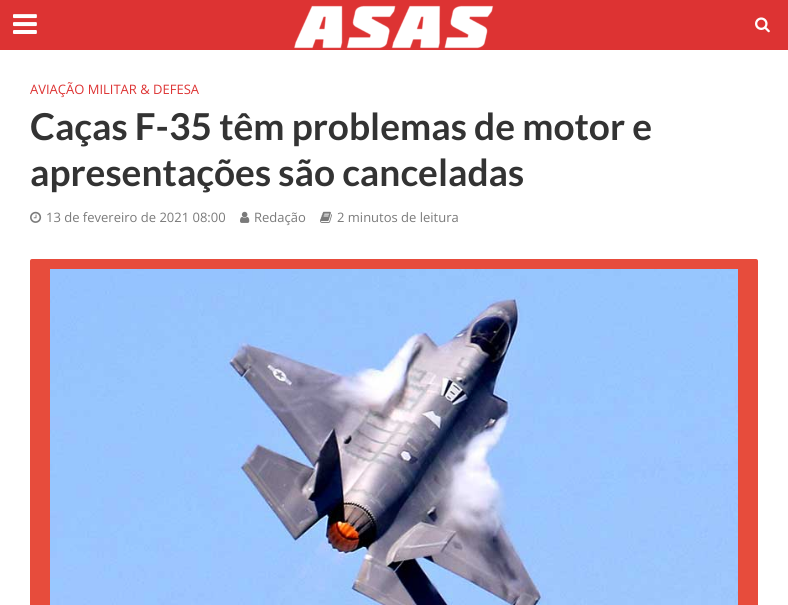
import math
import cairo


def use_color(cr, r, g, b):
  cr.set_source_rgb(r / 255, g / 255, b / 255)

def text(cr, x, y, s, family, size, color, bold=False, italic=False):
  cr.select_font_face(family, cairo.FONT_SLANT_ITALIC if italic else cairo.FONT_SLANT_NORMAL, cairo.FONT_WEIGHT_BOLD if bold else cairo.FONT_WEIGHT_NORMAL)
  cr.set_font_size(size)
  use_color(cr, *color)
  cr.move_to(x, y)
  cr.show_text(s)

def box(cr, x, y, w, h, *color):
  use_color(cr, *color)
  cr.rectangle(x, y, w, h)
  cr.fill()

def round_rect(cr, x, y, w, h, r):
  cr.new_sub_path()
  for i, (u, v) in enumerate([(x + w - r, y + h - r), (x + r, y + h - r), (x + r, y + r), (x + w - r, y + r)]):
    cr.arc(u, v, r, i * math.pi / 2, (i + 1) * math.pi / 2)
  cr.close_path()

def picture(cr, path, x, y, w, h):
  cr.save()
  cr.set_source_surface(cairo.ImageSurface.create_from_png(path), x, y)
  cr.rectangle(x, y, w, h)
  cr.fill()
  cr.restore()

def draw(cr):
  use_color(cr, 255, 255, 255)
  cr.paint()
  box(cr, 0, 0, 788, 50, 221, 51, 51)
  picture(cr, "img_01.png", 13, 14, 24, 20)
  picture(cr, "img_02.png", 294, 5, 200, 44)
  picture(cr, "img_03.png", 755, 17, 15, 16)
  picture(cr, "img_04.png", 30, 211, 12, 12)
  picture(cr, "img_05.png", 240, 211, 10, 12)
  picture(cr, "img_06.png", 320, 211, 12, 12)
  use_color(cr, 231, 76, 60)
  round_rect(cr, 30, 259, 728, 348, 2)
  cr.fill()
  picture(cr, "img_07.png", 50, 269, 688, 336)
  text(cr, 30, 94, "AVIAÇÃO MILITAR & DEFESA", "Open Sans", 13, (221, 51, 51))
  text(cr, 30, 140, "Caças F-35 têm problemas de motor e", "Lato", 37.1, (51, 51, 51), bold=True)
  text(cr, 30, 186, "apresentações são canceladas", "Lato", 37.1, (51, 51, 51), bold=True)
  text(cr, 46, 222, "13 de fevereiro de 2021 08:00", "Open Sans", 13, (122, 122, 122))
  text(cr, 254, 222, "Redação", "Open Sans", 13, (122, 122, 122))
  text(cr, 337, 222, "2 minutos de leitura", "Open Sans", 13, (122, 122, 122))


surface = cairo.ImageSurface(cairo.FORMAT_RGB24, 788, 605)
cr = cairo.Context(surface)
options = cairo.FontOptions()
options.set_hint_metrics(cairo.HINT_METRICS_OFF)
options.set_hint_style(cairo.HINT_STYLE_NONE)
cr.set_font_options(options)
cr.set_miter_limit(4)
draw(cr)
surface.write_to_png("out.png")
